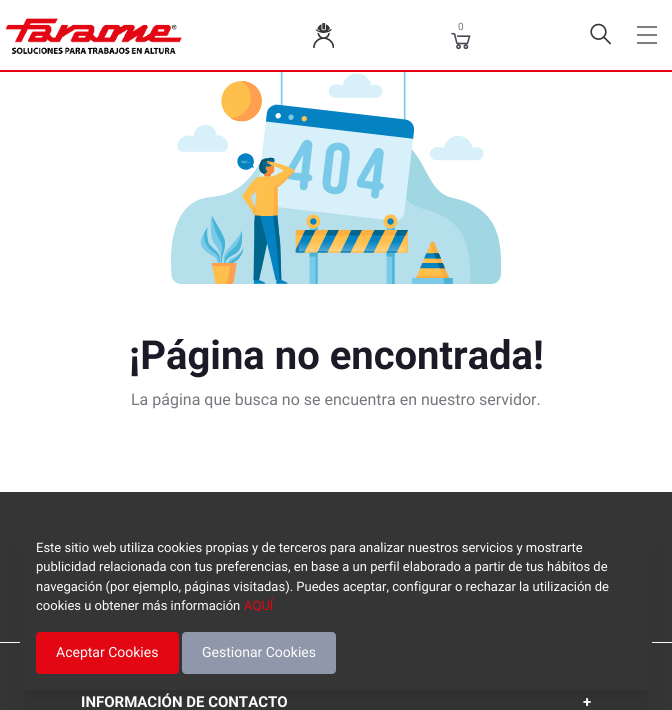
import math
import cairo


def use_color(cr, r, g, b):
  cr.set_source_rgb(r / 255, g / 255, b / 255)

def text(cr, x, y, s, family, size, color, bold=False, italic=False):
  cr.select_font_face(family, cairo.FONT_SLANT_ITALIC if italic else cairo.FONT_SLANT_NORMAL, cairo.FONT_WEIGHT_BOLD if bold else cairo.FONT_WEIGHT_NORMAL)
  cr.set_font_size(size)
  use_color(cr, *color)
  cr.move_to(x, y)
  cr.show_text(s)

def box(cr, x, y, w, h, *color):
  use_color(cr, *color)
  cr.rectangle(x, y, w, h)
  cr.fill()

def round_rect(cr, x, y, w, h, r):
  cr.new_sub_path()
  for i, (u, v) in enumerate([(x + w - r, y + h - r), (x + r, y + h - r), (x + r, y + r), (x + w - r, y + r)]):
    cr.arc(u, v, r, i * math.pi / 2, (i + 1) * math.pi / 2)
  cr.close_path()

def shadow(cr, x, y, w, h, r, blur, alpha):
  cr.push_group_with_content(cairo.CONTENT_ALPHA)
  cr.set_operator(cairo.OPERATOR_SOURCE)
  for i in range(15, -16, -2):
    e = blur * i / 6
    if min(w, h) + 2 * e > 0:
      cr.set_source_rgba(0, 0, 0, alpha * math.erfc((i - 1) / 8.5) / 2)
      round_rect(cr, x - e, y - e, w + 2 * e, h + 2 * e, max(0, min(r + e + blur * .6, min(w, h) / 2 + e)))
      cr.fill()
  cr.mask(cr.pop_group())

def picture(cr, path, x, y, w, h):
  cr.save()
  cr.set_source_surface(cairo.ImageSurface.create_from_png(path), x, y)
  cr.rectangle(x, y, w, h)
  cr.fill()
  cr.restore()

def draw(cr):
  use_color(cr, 255, 255, 255)
  cr.paint()
  box(cr, 0, 70, 672, 2, 227, 6, 19)
  picture(cr, "img_01.png", 5, 18, 177, 37)
  picture(cr, "img_02.png", 313, 23, 21, 25)
  picture(cr, "img_03.png", 451, 32, 20, 18)
  picture(cr, "img_04.png", 590, 23, 22, 22)
  picture(cr, "img_05.png", 637, 26, 20, 18)
  picture(cr, "img_06.png", 171, 72, 330, 212)
  box(cr, 0, 492, 672, 150, 53, 53, 53)
  box(cr, 0, 643, 672, 67, 53, 53, 53)
  use_color(cr, 0, 0, 0)
  shadow(cr, 25, 537, 622, 158, 0, 5, 0.04)
  shadow(cr, 25, 547, 622, 158, 0, 12.5, 0.1)
  use_color(cr, 53, 53, 53)
  round_rect(cr, 20, 522, 632, 168, 4)
  cr.fill()
  use_color(cr, 227, 6, 19)
  round_rect(cr, 36.5, 632.5, 142, 41, 3.5)
  cr.fill_preserve()
  cr.set_line_width(1)
  cr.stroke()
  use_color(cr, 143, 151, 171)
  round_rect(cr, 182.5, 632.5, 153, 41, 3.5)
  cr.fill_preserve()
  cr.stroke()
  text(cr, 458, 30, "0", "Roboto", 10, (118, 118, 126))
  text(cr, 129, 369, "¡Página no encontrada!", "Roboto", 40, (27, 27, 40), bold=True)
  text(cr, 131, 405, "La página que busca no se encuentra en nuestro servidor.", "Roboto", 16, (118, 118, 126))
  text(cr, 81, 707, "INFORMACIÓN DE CONTACTO", "Roboto", 15, (252, 252, 252), bold=True)
  text(cr, 583, 707, "+", "Roboto", 15, (252, 252, 252), bold=True)
  text(cr, 36, 552, "Este sitio web utiliza cookies propias y de terceros para analizar nuestros servicios y mostrarte", "Roboto", 13, (252, 252, 252))
  text(cr, 36, 571, "publicidad relacionada con tus preferencias, en base a un perfil elaborado a partir de tus hábitos de", "Roboto", 13, (252, 252, 252))
  text(cr, 36, 591, "navegación (por ejemplo, páginas visitadas). Puedes aceptar, configurar o rechazar la utilización de", "Roboto", 13, (252, 252, 252))
  text(cr, 36, 610, "cookies u obtener más información", "Roboto", 13, (252, 252, 252))
  text(cr, 244, 610, "AQUÍ", "Roboto", 13, (227, 6, 19))
  text(cr, 56, 657, "Aceptar Cookies", "Roboto", 14, (252, 252, 252))
  text(cr, 202, 657, "Gestionar Cookies", "Roboto", 14, (252, 252, 252))


surface = cairo.ImageSurface(cairo.FORMAT_RGB24, 672, 710)
cr = cairo.Context(surface)
options = cairo.FontOptions()
options.set_hint_metrics(cairo.HINT_METRICS_OFF)
options.set_hint_style(cairo.HINT_STYLE_NONE)
cr.set_font_options(options)
cr.set_miter_limit(4)
draw(cr)
surface.write_to_png("out.png")
